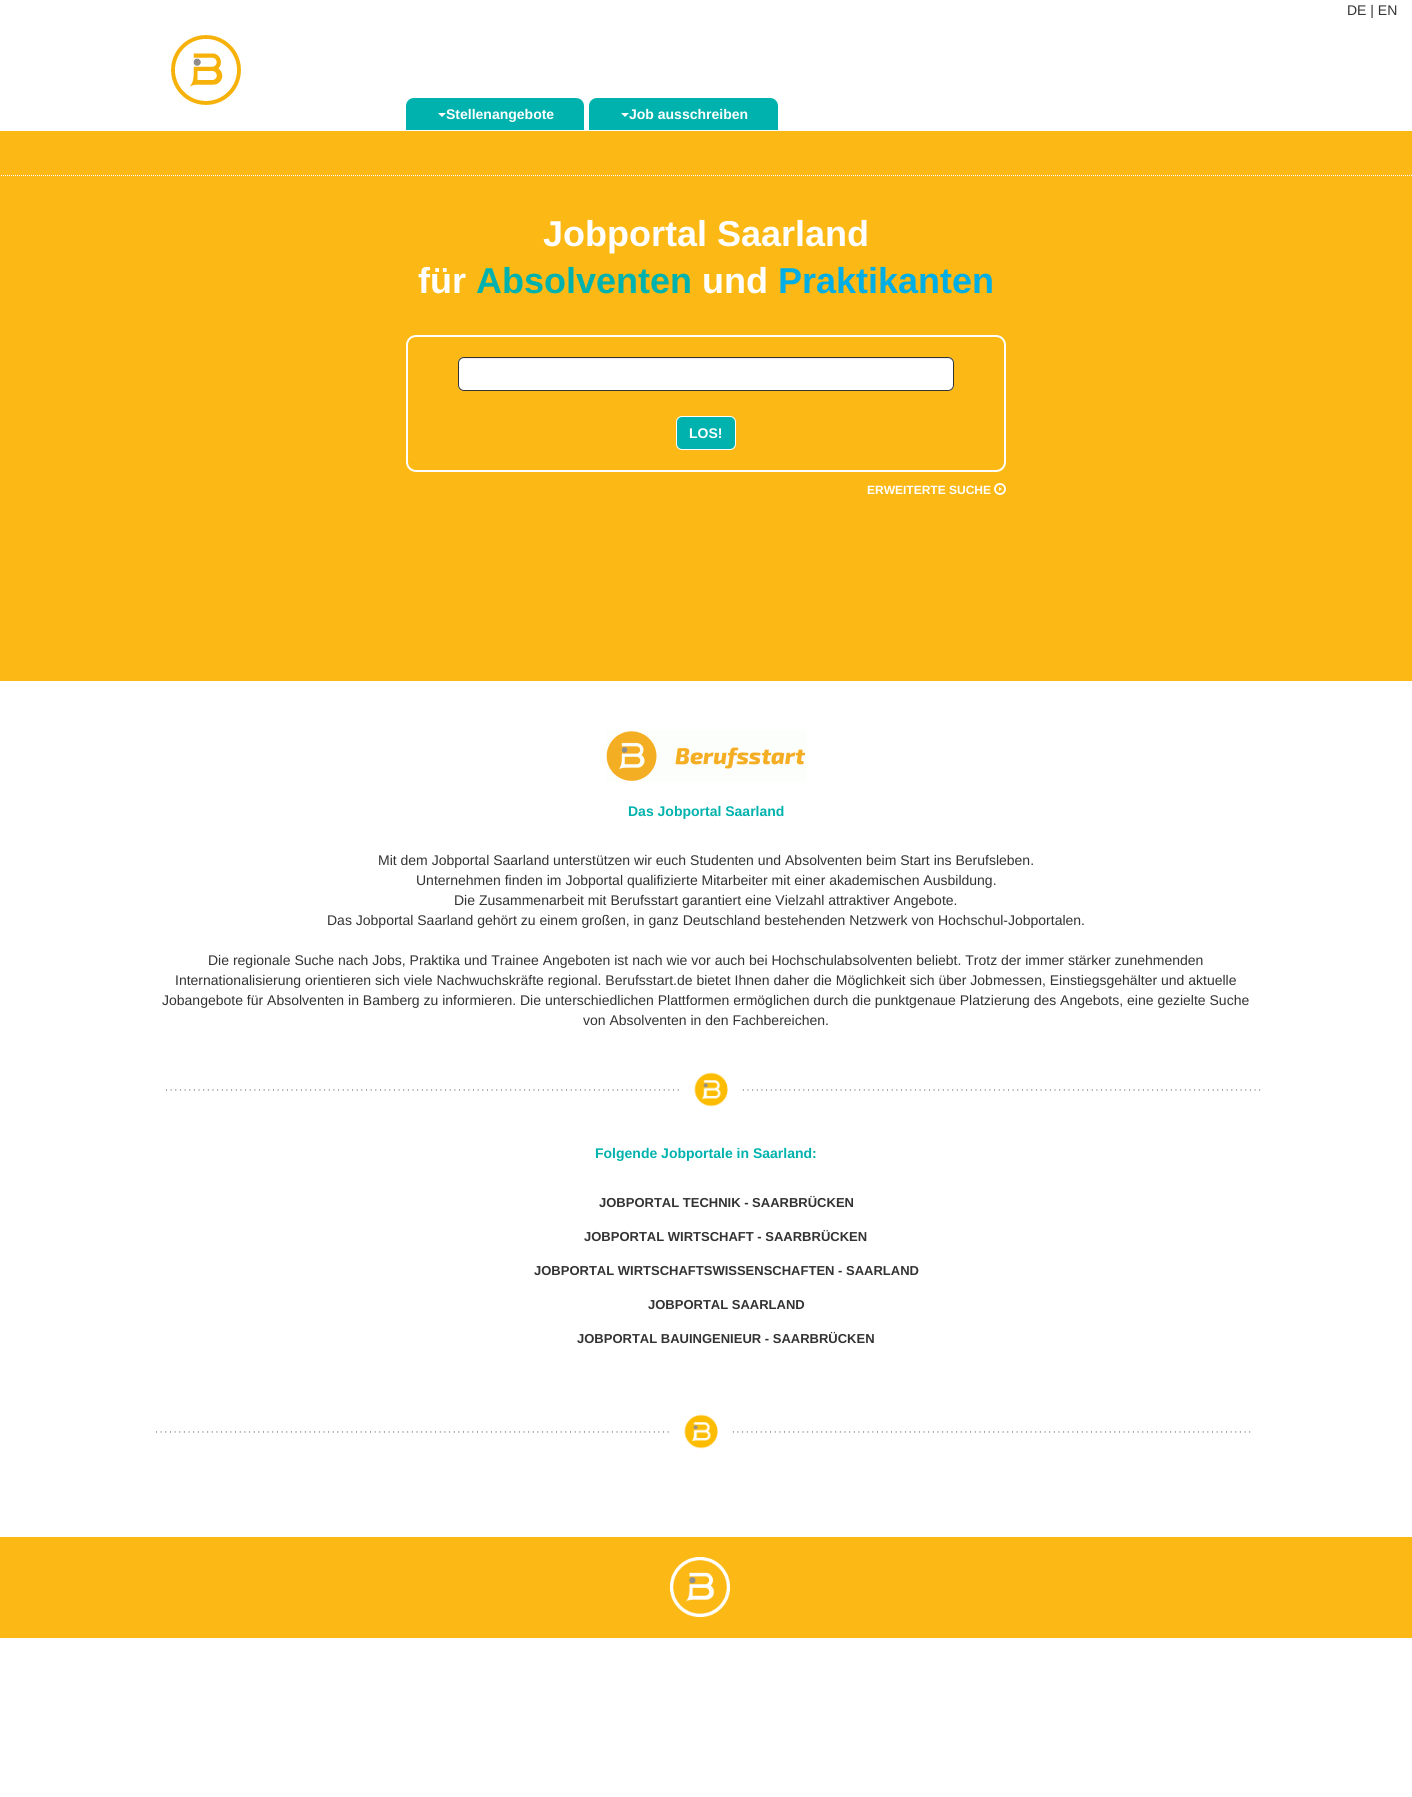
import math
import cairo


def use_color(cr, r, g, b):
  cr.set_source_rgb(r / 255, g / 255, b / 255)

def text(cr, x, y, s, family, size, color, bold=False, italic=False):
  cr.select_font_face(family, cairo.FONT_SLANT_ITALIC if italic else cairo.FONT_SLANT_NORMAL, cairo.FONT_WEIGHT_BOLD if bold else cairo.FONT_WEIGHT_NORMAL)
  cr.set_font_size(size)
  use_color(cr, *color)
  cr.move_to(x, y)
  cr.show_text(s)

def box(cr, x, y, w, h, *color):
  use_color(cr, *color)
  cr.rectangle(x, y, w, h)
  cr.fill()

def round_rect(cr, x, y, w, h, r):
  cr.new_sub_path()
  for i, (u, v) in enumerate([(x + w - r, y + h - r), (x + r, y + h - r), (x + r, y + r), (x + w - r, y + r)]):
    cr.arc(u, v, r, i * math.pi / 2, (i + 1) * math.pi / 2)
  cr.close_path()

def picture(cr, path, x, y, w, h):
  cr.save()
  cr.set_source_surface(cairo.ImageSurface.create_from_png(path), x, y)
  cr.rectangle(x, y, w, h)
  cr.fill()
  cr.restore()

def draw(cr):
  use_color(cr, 255, 255, 255)
  cr.paint()
  picture(cr, "img_01.png", 171, 35, 70, 70)
  use_color(cr, 0, 178, 173)
  cr.new_path()
  cr.move_to(414, 98)
  cr.line_to(576, 98)
  cr.curve_to(580.5, 98, 584, 101.5, 584, 106)
  cr.line_to(584, 131)
  cr.line_to(406, 131)
  cr.line_to(406, 106)
  cr.curve_to(406, 101.5, 409.5, 98, 414, 98)
  cr.close_path()
  cr.fill()
  box(cr, 406, 130, 178, 1, 255, 255, 255)
  cr.new_path()
  cr.move_to(438, 113)
  cr.line_to(446, 113)
  cr.line_to(442, 117)
  cr.close_path()
  cr.fill()
  use_color(cr, 0, 178, 173)
  cr.new_path()
  cr.move_to(597, 98)
  cr.line_to(770, 98)
  cr.curve_to(774.5, 98, 778, 101.5, 778, 106)
  cr.line_to(778, 131)
  cr.line_to(589, 131)
  cr.line_to(589, 106)
  cr.curve_to(589, 101.5, 592.5, 98, 597, 98)
  cr.close_path()
  cr.fill()
  box(cr, 589, 130, 189, 1, 255, 255, 255)
  cr.new_path()
  cr.move_to(621, 113)
  cr.line_to(629, 113)
  cr.line_to(625, 117)
  cr.close_path()
  cr.fill()
  box(cr, 0, 131, 1412, 550, 252, 184, 20)
  cr.new_path()
  cr.move_to(-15, 175.5)
  cr.line_to(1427, 175.5)
  use_color(cr, 255, 255, 255)
  cr.set_line_width(1)
  cr.set_dash([1, 1])
  cr.stroke()
  round_rect(cr, 407, 336, 598, 135, 9)
  cr.set_line_width(2)
  cr.set_dash([])
  cr.stroke()
  round_rect(cr, 458, 357, 496, 34, 6)
  cr.fill()
  use_color(cr, 236, 236, 236)
  cr.new_path()
  cr.move_to(464, 359)
  cr.line_to(948, 359)
  cr.curve_to(951, 359, 953, 361, 953, 364)
  cr.line_to(953, 363)
  cr.curve_to(953, 360, 951, 358, 948, 358)
  cr.line_to(464, 358)
  cr.curve_to(461, 358, 459, 360, 459, 363)
  cr.line_to(459, 364)
  cr.curve_to(459, 361, 461, 359, 464, 359)
  cr.close_path()
  cr.fill()
  round_rect(cr, 458.5, 357.5, 495, 33, 5.5)
  use_color(cr, 51, 51, 51)
  cr.set_line_width(1)
  cr.stroke()
  use_color(cr, 0, 178, 173)
  round_rect(cr, 676.5, 416.5, 59, 33, 5.5)
  cr.fill_preserve()
  use_color(cr, 255, 255, 255)
  cr.stroke()
  picture(cr, "img_02.png", 994, 483, 12, 12)
  picture(cr, "img_03.png", 606, 731, 200, 50)
  picture(cr, "img_04.png", 166, 1072, 1095, 35)
  picture(cr, "img_04.png", 156, 1414, 1095, 35)
  box(cr, 0, 1537, 1412, 101, 252, 184, 20)
  picture(cr, "img_05.png", 670, 1557, 60, 60)
  text(cr, 1347, 15, "DE | EN", "Liberation Sans", 14, (51, 51, 51))
  text(cr, 446, 119, "Stellenangebote", "Liberation Sans", 14, (255, 255, 255), bold=True)
  text(cr, 629, 119, "Job ausschreiben", "Liberation Sans", 14, (255, 255, 255), bold=True)
  text(cr, 543, 246, "Jobportal Saarland", "Liberation Sans", 36, (255, 255, 255), bold=True)
  text(cr, 418, 293, "für", "Liberation Sans", 36, (255, 255, 255), bold=True)
  text(cr, 476, 293, "Absolventen", "Liberation Sans", 36, (0, 178, 173), bold=True)
  text(cr, 702, 293, "und", "Liberation Sans", 36, (255, 255, 255), bold=True)
  text(cr, 778, 293, "Praktikanten", "Liberation Sans", 36, (0, 174, 230), bold=True)
  text(cr, 689, 438, "LOS!", "Liberation Sans", 14, (255, 255, 255), bold=True)
  text(cr, 867, 494, "ERWEITERTE SUCHE", "Liberation Sans", 12, (255, 255, 255), bold=True)
  text(cr, 628, 816, "Das Jobportal Saarland", "Liberation Sans", 14, (0, 178, 173), bold=True)
  text(cr, 378, 865, "Mit dem Jobportal Saarland unterstützen wir euch Studenten und Absolventen beim Start ins Berufsleben.", "Liberation Sans", 14, (51, 51, 51))
  text(cr, 416, 885, "Unternehmen finden im Jobportal qualifizierte Mitarbeiter mit einer akademischen Ausbildung.", "Liberation Sans", 14, (51, 51, 51))
  text(cr, 454, 905, "Die Zusammenarbeit mit Berufsstart garantiert eine Vielzahl attraktiver Angebote.", "Liberation Sans", 14, (51, 51, 51))
  text(cr, 327, 925, "Das Jobportal Saarland gehört zu einem großen, in ganz Deutschland bestehenden Netzwerk von Hochschul-Jobportalen.", "Liberation Sans", 14, (51, 51, 51))
  text(cr, 208, 965, "Die regionale Suche nach Jobs, Praktika und Trainee Angeboten ist nach wie vor auch bei Hochschulabsolventen beliebt. Trotz der immer stärker zunehmenden", "Liberation Sans", 14, (51, 51, 51))
  text(cr, 175, 985, "Internationalisierung orientieren sich viele Nachwuchskräfte regional. Berufsstart.de bietet Ihnen daher die Möglichkeit sich über Jobmessen, Einstiegsgehälter und aktuelle", "Liberation Sans", 14, (51, 51, 51))
  text(cr, 162, 1005, "Jobangebote für Absolventen in Bamberg zu informieren. Die unterschiedlichen Plattformen ermöglichen durch die punktgenaue Platzierung des Angebots, eine gezielte Suche", "Liberation Sans", 14, (51, 51, 51))
  text(cr, 583, 1025, "von Absolventen in den Fachbereichen.", "Liberation Sans", 14, (51, 51, 51))
  text(cr, 595, 1158, "Folgende Jobportale in Saarland:", "Liberation Sans", 14, (0, 178, 173), bold=True)
  text(cr, 599, 1207, "JOBPORTAL TECHNIK - SAARBRÜCKEN", "Liberation Sans", 13, (51, 51, 51), bold=True)
  text(cr, 584, 1241, "JOBPORTAL WIRTSCHAFT - SAARBRÜCKEN", "Liberation Sans", 13, (51, 51, 51), bold=True)
  text(cr, 534, 1275, "JOBPORTAL WIRTSCHAFTSWISSENSCHAFTEN - SAARLAND", "Liberation Sans", 13, (51, 51, 51), bold=True)
  text(cr, 648, 1309, "JOBPORTAL SAARLAND", "Liberation Sans", 13, (51, 51, 51), bold=True)
  text(cr, 577, 1343, "JOBPORTAL BAUINGENIEUR - SAARBRÜCKEN", "Liberation Sans", 13, (51, 51, 51), bold=True)


surface = cairo.ImageSurface(cairo.FORMAT_RGB24, 1412, 1797)
cr = cairo.Context(surface)
options = cairo.FontOptions()
options.set_hint_metrics(cairo.HINT_METRICS_OFF)
options.set_hint_style(cairo.HINT_STYLE_NONE)
cr.set_font_options(options)
cr.set_miter_limit(4)
draw(cr)
surface.write_to_png("out.png")
